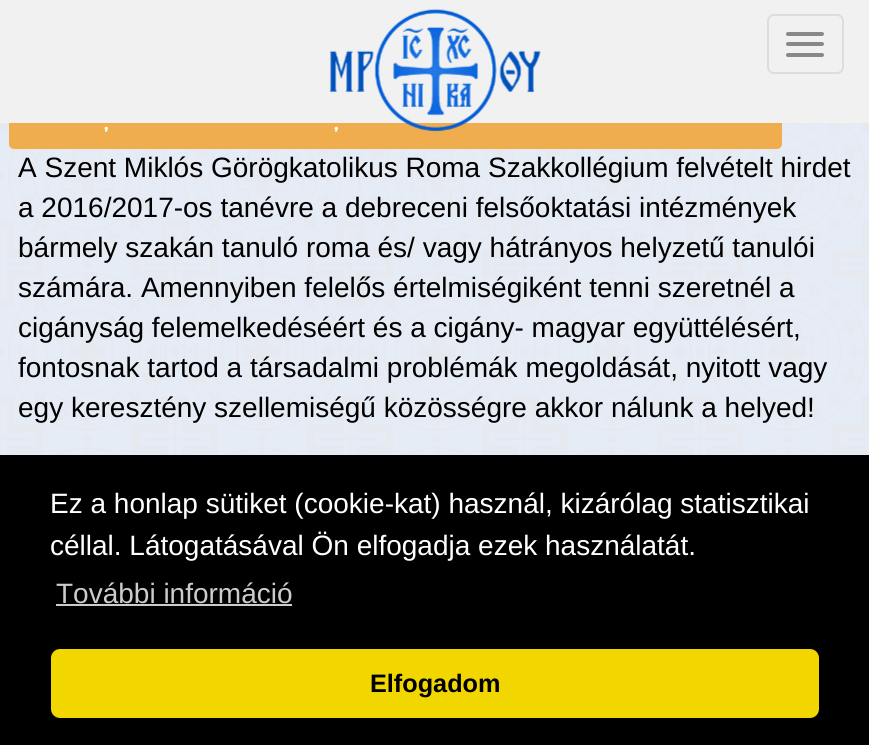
import math
import cairo


def use_color(cr, r, g, b):
  cr.set_source_rgb(r / 255, g / 255, b / 255)

def text(cr, x, y, s, family, size, color, bold=False, italic=False):
  cr.select_font_face(family, cairo.FONT_SLANT_ITALIC if italic else cairo.FONT_SLANT_NORMAL, cairo.FONT_WEIGHT_BOLD if bold else cairo.FONT_WEIGHT_NORMAL)
  cr.set_font_size(size)
  use_color(cr, *color)
  cr.move_to(x, y)
  cr.show_text(s)

def box(cr, x, y, w, h, *color):
  use_color(cr, *color)
  cr.rectangle(x, y, w, h)
  cr.fill()

def round_rect(cr, x, y, w, h, r):
  cr.new_sub_path()
  for i, (u, v) in enumerate([(x + w - r, y + h - r), (x + r, y + h - r), (x + r, y + r), (x + w - r, y + r)]):
    cr.arc(u, v, r, i * math.pi / 2, (i + 1) * math.pi / 2)
  cr.close_path()

def picture(cr, path, x, y, w, h):
  cr.save()
  cr.set_source_surface(cairo.ImageSurface.create_from_png(path), x, y)
  cr.rectangle(x, y, w, h)
  cr.fill()
  cr.restore()

def draw(cr):
  use_color(cr, 255, 255, 255)
  cr.paint()
  picture(cr, "img_01.png", 0, 123, 869, 332)
  use_color(cr, 240, 173, 78)
  round_rect(cr, 9, 103, 773, 46, 5)
  cr.fill()
  box(cr, 0, 0, 869, 123, 241, 241, 241)
  round_rect(cr, 768, 15, 75, 58, 6)
  use_color(cr, 221, 221, 221)
  cr.stroke()
  use_color(cr, 136, 136, 136)
  round_rect(cr, 786, 32, 38, 4, 2)
  cr.fill()
  round_rect(cr, 786, 42, 38, 4, 2)
  cr.fill()
  round_rect(cr, 786, 53, 38, 4, 2)
  cr.fill()
  box(cr, 0, 455, 869, 290, 0, 0, 0)
  box(cr, 56, 604, 236, 2, 204, 204, 204)
  use_color(cr, 241, 214, 0)
  round_rect(cr, 51, 649, 768, 69, 9)
  cr.fill()
  text(cr, 104, 130, ",", "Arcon", 24, (255, 255, 255), bold=True)
  text(cr, 334, 130, ",", "Arcon", 24, (255, 255, 255), bold=True)
  picture(cr, "img_02.png", 329, 9, 212, 123)
  text(cr, 18, 177, "A Szent Miklós Görögkatolikus Roma Szakkollégium felvételt hirdet", "Liberation Sans", 28, (0, 0, 0))
  text(cr, 18, 217, "a 2016/2017-os tanévre a debreceni felsőoktatási intézmények", "Liberation Sans", 28, (0, 0, 0))
  text(cr, 18, 257, "bármely szakán tanuló roma és/ vagy hátrányos helyzetű tanulói", "Liberation Sans", 28, (0, 0, 0))
  text(cr, 18, 297, "számára. Amennyiben felelős értelmiségiként tenni szeretnél a", "Liberation Sans", 28, (0, 0, 0))
  text(cr, 18, 337, "cigányság felemelkedéséért és a cigány- magyar együttélésért,", "Liberation Sans", 28, (0, 0, 0))
  text(cr, 18, 377, "fontosnak tartod a társadalmi problémák megoldását, nyitott vagy", "Liberation Sans", 28, (0, 0, 0))
  text(cr, 18, 417, "egy keresztény szellemiségű közösségre akkor nálunk a helyed!", "Liberation Sans", 28, (0, 0, 0))
  text(cr, 50, 513, "Ez a honlap sütiket (cookie-kat) használ, kizárólag statisztikai", "Liberation Sans", 28, (255, 255, 255))
  text(cr, 50, 555, "céllal. Látogatásával Ön elfogadja ezek használatát.", "Liberation Sans", 28, (255, 255, 255))
  text(cr, 56, 603, "További információ", "Liberation Sans", 28, (204, 204, 204))
  text(cr, 370, 692, "Elfogadom", "Liberation Sans", 25.25, (0, 0, 0), bold=True)


surface = cairo.ImageSurface(cairo.FORMAT_RGB24, 869, 745)
cr = cairo.Context(surface)
options = cairo.FontOptions()
options.set_hint_metrics(cairo.HINT_METRICS_OFF)
options.set_hint_style(cairo.HINT_STYLE_NONE)
cr.set_font_options(options)
cr.set_miter_limit(4)
draw(cr)
surface.write_to_png("out.png")
